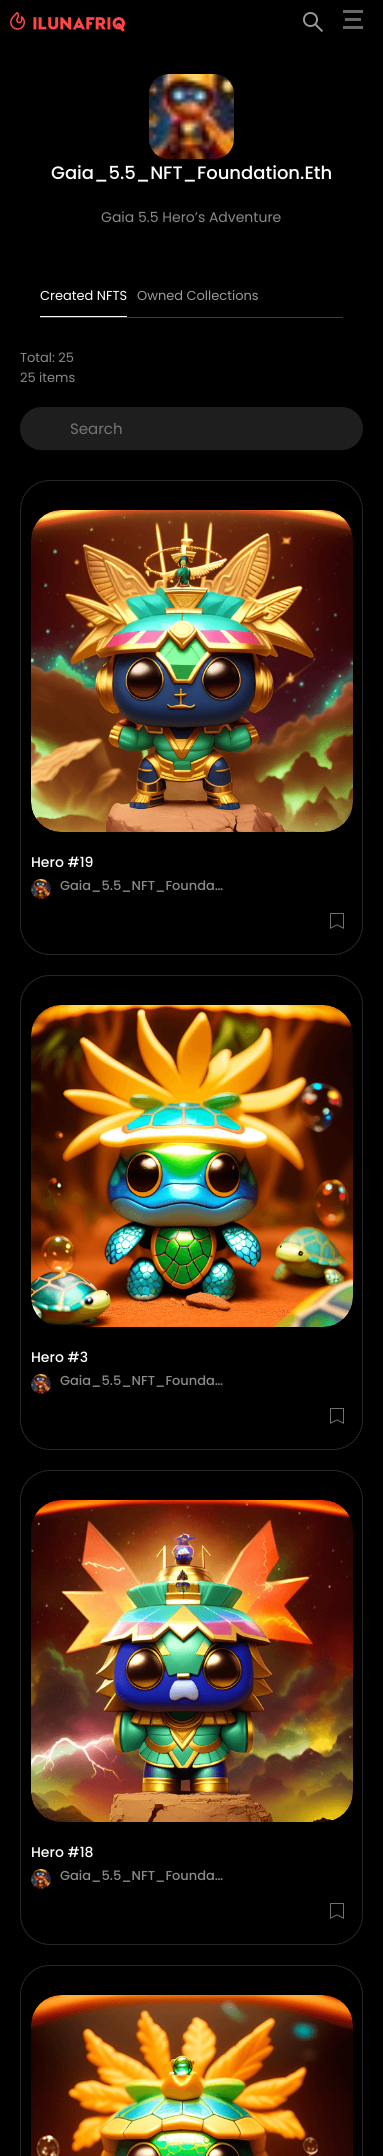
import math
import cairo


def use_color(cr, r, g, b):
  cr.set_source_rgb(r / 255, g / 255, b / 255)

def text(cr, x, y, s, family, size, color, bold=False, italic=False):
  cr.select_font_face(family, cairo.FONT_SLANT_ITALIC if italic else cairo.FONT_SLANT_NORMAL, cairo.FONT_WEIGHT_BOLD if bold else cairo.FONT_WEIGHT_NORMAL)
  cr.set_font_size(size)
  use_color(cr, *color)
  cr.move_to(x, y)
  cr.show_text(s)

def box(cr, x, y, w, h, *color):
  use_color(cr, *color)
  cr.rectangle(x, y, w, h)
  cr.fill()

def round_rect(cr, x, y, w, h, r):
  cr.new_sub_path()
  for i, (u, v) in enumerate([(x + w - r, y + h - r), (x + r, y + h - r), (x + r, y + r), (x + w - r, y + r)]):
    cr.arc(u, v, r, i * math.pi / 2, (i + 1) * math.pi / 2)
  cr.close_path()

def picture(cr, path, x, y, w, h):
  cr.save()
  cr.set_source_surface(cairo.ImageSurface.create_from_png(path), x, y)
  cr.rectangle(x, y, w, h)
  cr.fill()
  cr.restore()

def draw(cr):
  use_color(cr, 0, 0, 0)
  cr.paint()
  picture(cr, "img_01.png", 10, 12, 115, 20)
  picture(cr, "img_02.png", 303, 12, 20, 20)
  box(cr, 343, 10, 20, 3, 103, 103, 103)
  box(cr, 345, 18, 16, 3, 103, 103, 103)
  box(cr, 343, 26, 20, 3, 103, 103, 103)
  picture(cr, "img_03.png", 149, 74, 85, 85)
  box(cr, 40, 317, 303, 1, 58, 58, 58)
  box(cr, 40, 316, 87, 1, 255, 255, 255)
  use_color(cr, 30, 30, 30)
  round_rect(cr, 20, 407, 343, 43, 21.5)
  cr.fill()
  round_rect(cr, 20.5, 480.5, 342, 474, 29.5)
  use_color(cr, 38, 38, 38)
  cr.set_line_width(1)
  cr.stroke()
  picture(cr, "img_04.png", 31, 510, 322, 322)
  picture(cr, "img_05.png", 31, 879, 20, 20)
  picture(cr, "img_06.png", 330, 913, 14, 16)
  round_rect(cr, 20.5, 975.5, 342, 474, 29.5)
  cr.stroke()
  picture(cr, "img_07.png", 31, 1005, 322, 322)
  picture(cr, "img_05.png", 31, 1374, 20, 20)
  picture(cr, "img_06.png", 330, 1408, 14, 16)
  round_rect(cr, 20.5, 1470.5, 342, 474, 29.5)
  cr.stroke()
  picture(cr, "img_08.png", 31, 1500, 322, 322)
  picture(cr, "img_05.png", 31, 1869, 20, 20)
  picture(cr, "img_06.png", 330, 1903, 14, 16)
  round_rect(cr, 20.5, 1965.5, 342, 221, 29.5)
  cr.stroke()
  picture(cr, "img_09.png", 31, 1995, 322, 161)
  text(cr, 51, 179, "Gaia_5.5_NFT_Foundation.Eth", "Poppins Medium", 18, (255, 255, 255))
  text(cr, 101, 222, "Gaia 5.5 Hero’s Adventure", "Poppins", 14, (138, 138, 138))
  text(cr, 40, 300, "Created NFTS", "Poppins", 13, (255, 255, 255))
  text(cr, 137, 300, "Owned Collections", "Poppins", 13, (154, 154, 154))
  text(cr, 20, 362, "Total: 25", "Poppins", 13, (138, 138, 138))
  text(cr, 20, 382, "25 items", "Poppins", 13, (138, 138, 138))
  text(cr, 70, 434, "Search", "Poppins", 15, (117, 117, 117))
  text(cr, 31, 867, "Hero #19", "Poppins Medium", 14, (255, 255, 255))
  text(cr, 60, 890, "Gaia_5.5_NFT_Founda…", "Poppins Medium", 13, (138, 138, 138))
  text(cr, 31, 1362, "Hero #3", "Poppins Medium", 14, (255, 255, 255))
  text(cr, 60, 1385, "Gaia_5.5_NFT_Founda…", "Poppins Medium", 13, (138, 138, 138))
  text(cr, 31, 1857, "Hero #18", "Poppins Medium", 14, (255, 255, 255))
  text(cr, 60, 1880, "Gaia_5.5_NFT_Founda…", "Poppins Medium", 13, (138, 138, 138))


surface = cairo.ImageSurface(cairo.FORMAT_RGB24, 383, 2156)
cr = cairo.Context(surface)
options = cairo.FontOptions()
options.set_hint_metrics(cairo.HINT_METRICS_OFF)
options.set_hint_style(cairo.HINT_STYLE_NONE)
cr.set_font_options(options)
cr.set_miter_limit(4)
draw(cr)
surface.write_to_png("out.png")
